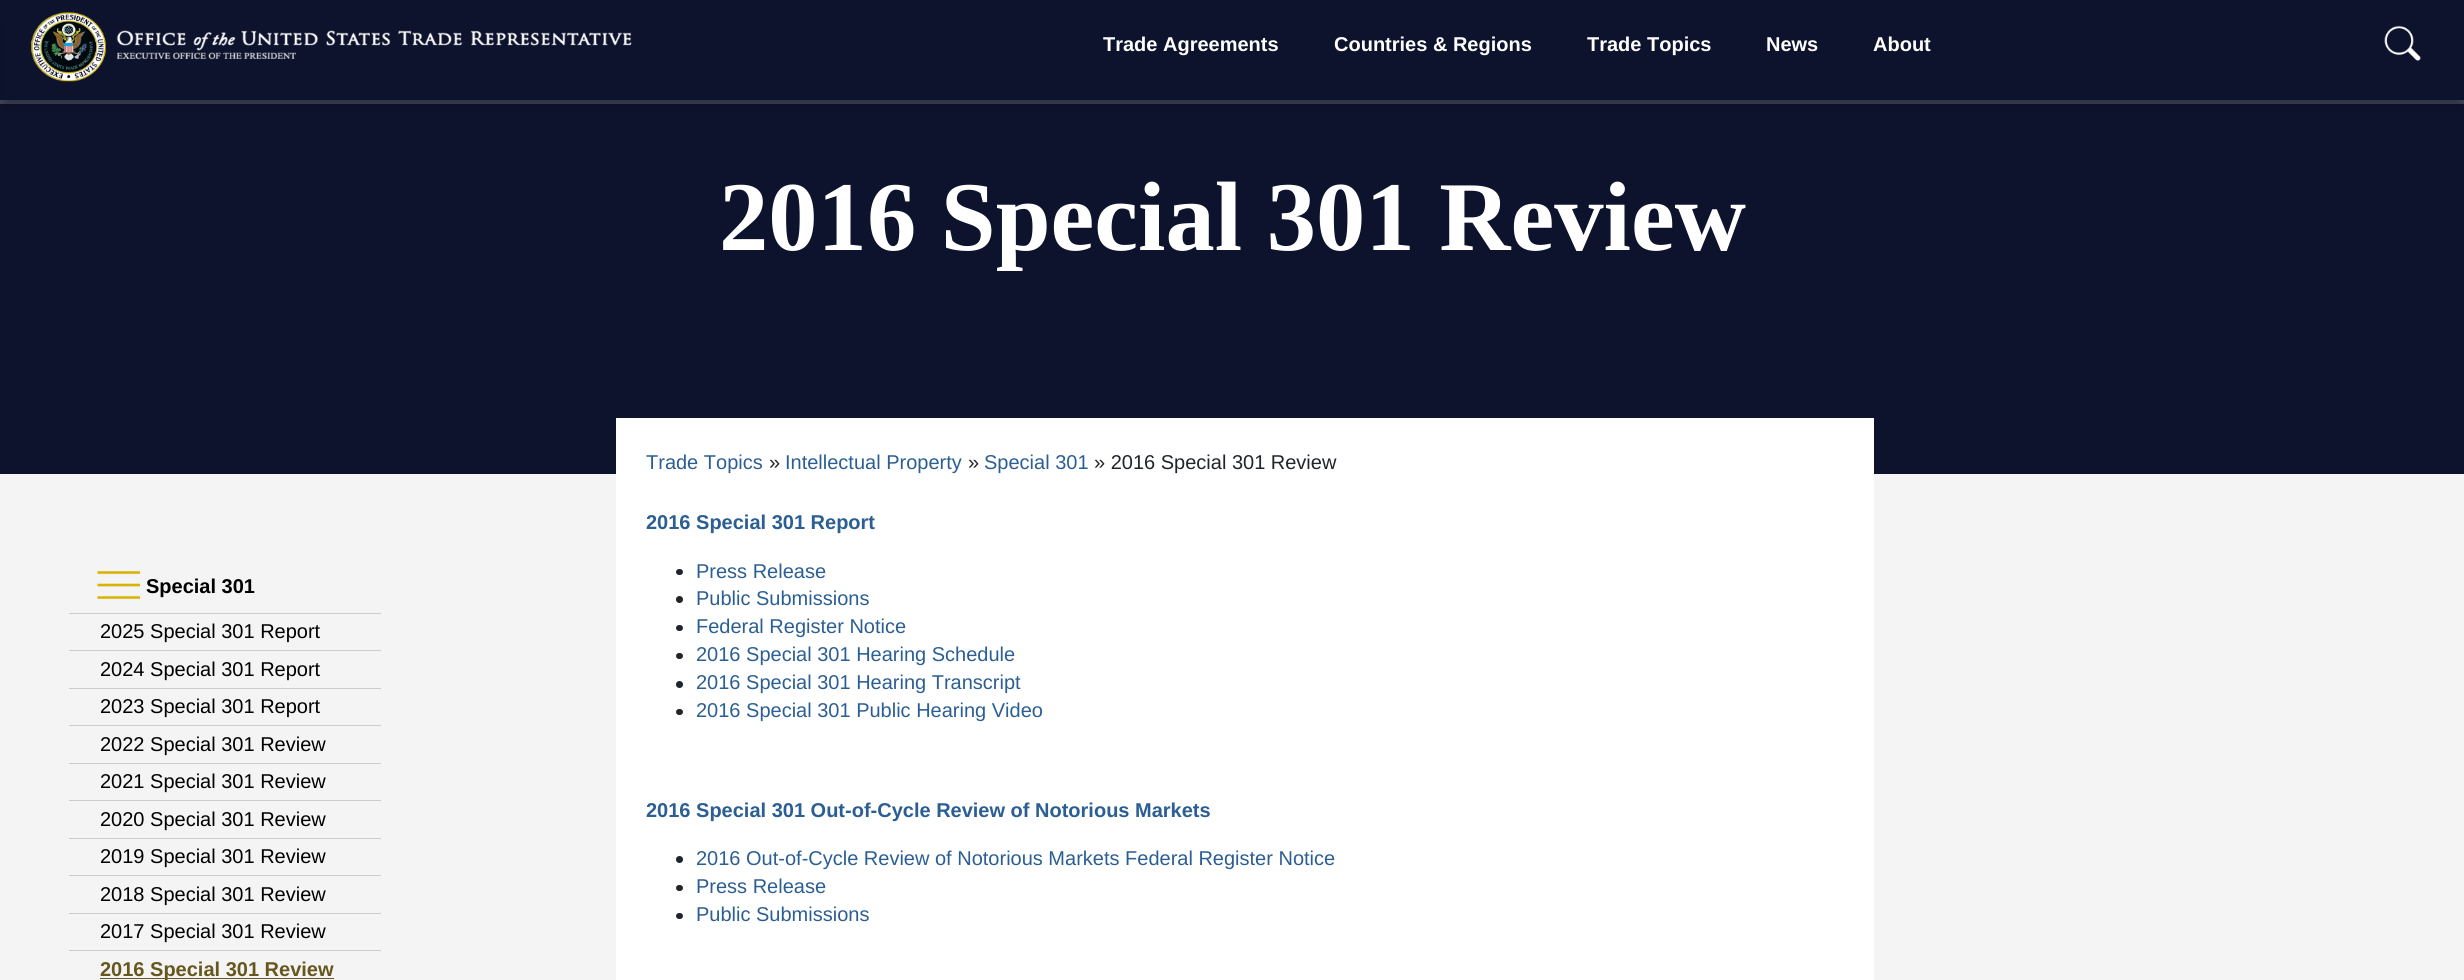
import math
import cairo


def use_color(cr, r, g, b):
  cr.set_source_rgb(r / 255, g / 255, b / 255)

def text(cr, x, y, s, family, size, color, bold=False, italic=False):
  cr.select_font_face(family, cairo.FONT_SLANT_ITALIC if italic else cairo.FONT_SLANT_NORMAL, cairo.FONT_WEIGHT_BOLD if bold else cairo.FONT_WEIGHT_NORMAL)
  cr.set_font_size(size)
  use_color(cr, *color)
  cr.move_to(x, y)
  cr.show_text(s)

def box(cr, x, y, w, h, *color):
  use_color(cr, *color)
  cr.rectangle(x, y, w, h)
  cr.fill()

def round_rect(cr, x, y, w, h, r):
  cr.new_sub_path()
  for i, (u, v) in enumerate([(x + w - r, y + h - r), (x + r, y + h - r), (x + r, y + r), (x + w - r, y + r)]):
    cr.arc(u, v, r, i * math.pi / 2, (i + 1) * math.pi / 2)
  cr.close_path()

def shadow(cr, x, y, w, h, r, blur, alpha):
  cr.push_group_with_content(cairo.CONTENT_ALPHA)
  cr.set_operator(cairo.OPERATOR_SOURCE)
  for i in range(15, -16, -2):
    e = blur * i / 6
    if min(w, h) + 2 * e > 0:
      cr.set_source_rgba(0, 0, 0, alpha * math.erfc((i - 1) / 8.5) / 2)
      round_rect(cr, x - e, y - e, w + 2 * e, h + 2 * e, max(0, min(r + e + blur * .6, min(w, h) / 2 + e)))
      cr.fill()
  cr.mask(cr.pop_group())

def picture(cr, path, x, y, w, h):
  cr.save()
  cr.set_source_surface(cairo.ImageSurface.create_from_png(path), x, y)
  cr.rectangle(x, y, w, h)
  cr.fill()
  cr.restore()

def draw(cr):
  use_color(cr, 13, 19, 45)
  cr.paint()
  box(cr, 0, 100, 2464, 4, 62, 66, 87)
  use_color(cr, 0, 0, 0)
  shadow(cr, 6, 19, 2453, 87, 0, 5, 0.25)
  box(cr, 2, 15, 2461, 85, 13, 19, 45)
  picture(cr, "img_01.png", 31, 12, 601, 70)
  picture(cr, "img_02.png", 2384, 25, 37, 36)
  box(cr, 0, 474, 2464, 506, 244, 244, 244)
  box(cr, 69, 613, 312, 1, 204, 204, 204)
  picture(cr, "img_03.png", 97, 571, 43, 28)
  box(cr, 69, 650, 312, 1, 204, 204, 204)
  box(cr, 69, 688, 312, 1, 204, 204, 204)
  box(cr, 69, 725, 312, 1, 204, 204, 204)
  box(cr, 69, 763, 312, 1, 204, 204, 204)
  box(cr, 69, 800, 312, 1, 204, 204, 204)
  box(cr, 69, 838, 312, 1, 204, 204, 204)
  box(cr, 69, 875, 312, 1, 204, 204, 204)
  box(cr, 69, 913, 312, 1, 204, 204, 204)
  box(cr, 69, 950, 312, 1, 204, 204, 204)
  box(cr, 100, 978, 234, 1, 103, 87, 30)
  box(cr, 616, 418, 1258, 562, 255, 255, 255)
  use_color(cr, 33, 37, 41)
  round_rect(cr, 676, 569, 7, 6, 3)
  cr.fill()
  cr.arc(679.5, 599.5, 3.5, 0, 2 * math.pi)
  cr.fill()
  round_rect(cr, 676, 625, 7, 6, 3)
  cr.fill()
  round_rect(cr, 676, 653, 7, 6, 3)
  cr.fill()
  cr.arc(679.5, 684.5, 3.5, 0, 2 * math.pi)
  cr.fill()
  round_rect(cr, 676, 709, 7, 6, 3)
  cr.fill()
  cr.arc(679.5, 859.5, 3.5, 0, 2 * math.pi)
  cr.fill()
  round_rect(cr, 676, 885, 7, 6, 3)
  cr.fill()
  round_rect(cr, 676, 913, 7, 6, 3)
  cr.fill()
  text(cr, 1103, 51, "Trade Agreements", "Liberation Sans", 20, (255, 255, 255), bold=True)
  text(cr, 1334, 51, "Countries & Regions", "Liberation Sans", 20, (255, 255, 255), bold=True)
  text(cr, 1587, 51, "Trade Topics", "Liberation Sans", 20, (255, 255, 255), bold=True)
  text(cr, 1766, 51, "News", "Liberation Sans", 20, (255, 255, 255), bold=True)
  text(cr, 1873, 51, "About", "Liberation Sans", 20, (255, 255, 255), bold=True)
  text(cr, 719, 250, "2016 Special 301 Review", "Liberation Serif", 98.6, (255, 255, 255), bold=True)
  text(cr, 146, 593, "Special 301", "Liberation Sans", 20, (0, 0, 0), bold=True)
  text(cr, 100, 638, "2025 Special 301 Report", "Liberation Sans", 20, (0, 0, 0))
  text(cr, 100, 676, "2024 Special 301 Report", "Liberation Sans", 20, (0, 0, 0))
  text(cr, 100, 713, "2023 Special 301 Report", "Liberation Sans", 20, (0, 0, 0))
  text(cr, 100, 751, "2022 Special 301 Review", "Liberation Sans", 20, (0, 0, 0))
  text(cr, 100, 788, "2021 Special 301 Review", "Liberation Sans", 20, (0, 0, 0))
  text(cr, 100, 826, "2020 Special 301 Review", "Liberation Sans", 20, (0, 0, 0))
  text(cr, 100, 863, "2019 Special 301 Review", "Liberation Sans", 20, (0, 0, 0))
  text(cr, 100, 901, "2018 Special 301 Review", "Liberation Sans", 20, (0, 0, 0))
  text(cr, 100, 938, "2017 Special 301 Review", "Liberation Sans", 20, (0, 0, 0))
  text(cr, 100, 976, "2016 Special 301 Review", "Liberation Sans", 20, (103, 87, 30), bold=True)
  text(cr, 646, 469, "Trade Topics", "Liberation Sans", 20, (43, 94, 146))
  text(cr, 769, 469, "»", "Liberation Sans", 20, (33, 37, 41))
  text(cr, 785, 469, "Intellectual Property", "Liberation Sans", 20, (43, 94, 146))
  text(cr, 968, 469, "»", "Liberation Sans", 20, (33, 37, 41))
  text(cr, 984, 469, "Special 301", "Liberation Sans", 20, (43, 94, 146))
  text(cr, 1094, 469, "» 2016 Special 301 Review", "Liberation Sans", 20, (33, 37, 41))
  text(cr, 646, 529, "2016 Special 301 Report", "Liberation Sans", 20, (43, 94, 146), bold=True)
  text(cr, 696, 578, "Press Release", "Liberation Sans", 20, (43, 94, 146))
  text(cr, 696, 605, "Public Submissions", "Liberation Sans", 20, (43, 94, 146))
  text(cr, 696, 633, "Federal Register Notice", "Liberation Sans", 20, (43, 94, 146))
  text(cr, 696, 661, "2016 Special 301 Hearing Schedule", "Liberation Sans", 20, (43, 94, 146))
  text(cr, 696, 689, "2016 Special 301 Hearing Transcript", "Liberation Sans", 20, (43, 94, 146))
  text(cr, 696, 717, "2016 Special 301 Public Hearing Video", "Liberation Sans", 20, (43, 94, 146))
  text(cr, 646, 817, "2016 Special 301 Out-of-Cycle Review of Notorious Markets", "Liberation Sans", 20, (43, 94, 146), bold=True)
  text(cr, 696, 865, "2016 Out-of-Cycle Review of Notorious Markets Federal Register Notice", "Liberation Sans", 20, (43, 94, 146))
  text(cr, 696, 893, "Press Release", "Liberation Sans", 20, (43, 94, 146))
  text(cr, 696, 921, "Public Submissions", "Liberation Sans", 20, (43, 94, 146))


surface = cairo.ImageSurface(cairo.FORMAT_RGB24, 2464, 980)
cr = cairo.Context(surface)
options = cairo.FontOptions()
options.set_hint_metrics(cairo.HINT_METRICS_OFF)
options.set_hint_style(cairo.HINT_STYLE_NONE)
cr.set_font_options(options)
cr.set_miter_limit(4)
draw(cr)
surface.write_to_png("out.png")
